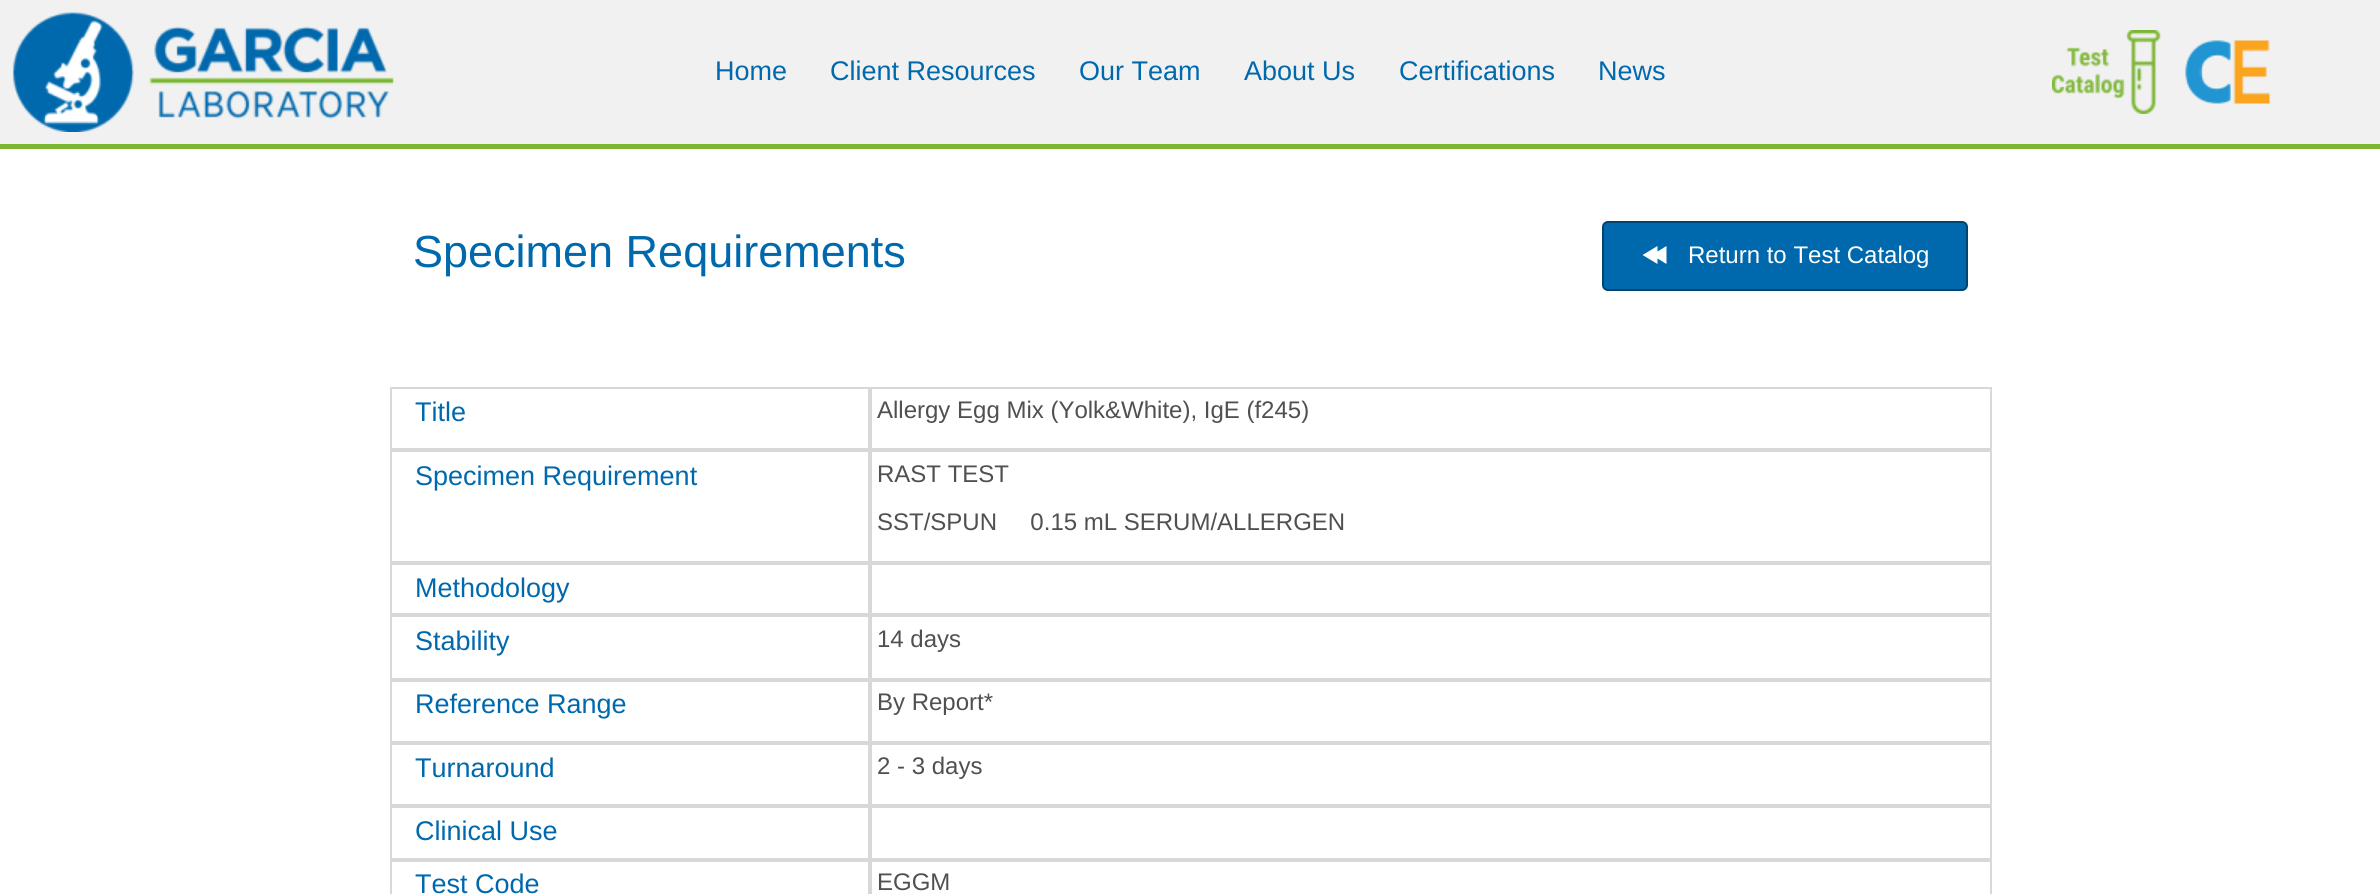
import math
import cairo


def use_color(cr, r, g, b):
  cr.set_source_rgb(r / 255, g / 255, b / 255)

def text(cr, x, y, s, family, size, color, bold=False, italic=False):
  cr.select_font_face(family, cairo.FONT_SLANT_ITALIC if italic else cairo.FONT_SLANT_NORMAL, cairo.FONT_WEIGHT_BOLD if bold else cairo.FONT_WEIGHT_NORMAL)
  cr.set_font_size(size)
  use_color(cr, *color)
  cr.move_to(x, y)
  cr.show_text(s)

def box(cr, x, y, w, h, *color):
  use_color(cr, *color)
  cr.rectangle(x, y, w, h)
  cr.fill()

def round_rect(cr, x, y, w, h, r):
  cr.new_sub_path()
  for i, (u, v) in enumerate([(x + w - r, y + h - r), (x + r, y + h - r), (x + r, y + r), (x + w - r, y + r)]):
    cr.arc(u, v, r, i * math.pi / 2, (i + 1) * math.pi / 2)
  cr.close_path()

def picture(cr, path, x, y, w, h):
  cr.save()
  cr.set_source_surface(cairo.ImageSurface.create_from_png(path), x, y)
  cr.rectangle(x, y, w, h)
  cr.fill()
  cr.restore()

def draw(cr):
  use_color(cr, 241, 241, 241)
  cr.paint()
  box(cr, 0, 144, 2380, 5, 122, 182, 50)
  picture(cr, "img_01.png", 12, 12, 383, 120)
  picture(cr, "img_02.png", 2052, 30, 109, 84)
  picture(cr, "img_03.png", 2185, 40, 85, 64)
  box(cr, 0, 149, 2380, 745, 255, 255, 255)
  use_color(cr, 0, 105, 173)
  round_rect(cr, 1603, 222, 364, 68, 5)
  cr.fill_preserve()
  use_color(cr, 0, 68, 112)
  cr.stroke()
  use_color(cr, 255, 255, 255)
  cr.new_path()
  cr.move_to(1642.5, 255)
  cr.line_to(1657.5, 246)
  cr.line_to(1657.5, 251.5)
  cr.line_to(1666.5, 246)
  cr.line_to(1666.5, 264)
  cr.line_to(1657.5, 258.5)
  cr.line_to(1657.5, 264)
  cr.close_path()
  cr.fill()
  cr.rectangle(391, 388, 478, 61)
  use_color(cr, 216, 216, 216)
  cr.stroke()
  cr.rectangle(871, 388, 1120, 61)
  cr.stroke()
  cr.rectangle(391, 451, 478, 111)
  cr.stroke()
  cr.rectangle(871, 451, 1120, 111)
  cr.stroke()
  cr.rectangle(391, 564, 478, 50)
  cr.stroke()
  cr.rectangle(871, 564, 1120, 50)
  cr.stroke()
  cr.rectangle(391, 616, 478, 63)
  cr.stroke()
  cr.rectangle(871, 616, 1120, 63)
  cr.stroke()
  cr.rectangle(391, 681, 478, 61)
  cr.stroke()
  cr.rectangle(871, 681, 1120, 61)
  cr.stroke()
  cr.rectangle(391, 744, 478, 61)
  cr.stroke()
  cr.rectangle(871, 744, 1120, 61)
  cr.stroke()
  cr.rectangle(391, 807, 478, 52)
  cr.stroke()
  cr.rectangle(871, 807, 1120, 52)
  cr.stroke()
  cr.rectangle(391, 861, 478, 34)
  cr.stroke()
  cr.rectangle(871, 861, 1120, 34)
  cr.stroke()
  text(cr, 715, 80, "Home", "Liberation Sans", 27, (0, 105, 173))
  text(cr, 830, 80, "Client Resources", "Liberation Sans", 27, (0, 105, 173))
  text(cr, 1079, 80, "Our Team", "Liberation Sans", 27, (0, 105, 173))
  text(cr, 1244, 80, "About Us", "Liberation Sans", 27, (0, 105, 173))
  text(cr, 1399, 80, "Certifications", "Liberation Sans", 27, (0, 105, 173))
  text(cr, 1598, 80, "News", "Liberation Sans", 27, (0, 105, 173))
  text(cr, 413, 267, "Specimen Requirements", "Liberation Sans", 45, (0, 105, 173))
  text(cr, 1688, 263, "Return to Test Catalog", "Liberation Sans", 24, (255, 255, 255))
  text(cr, 415, 421, "Title", "Liberation Sans", 27, (0, 105, 173))
  text(cr, 877, 418, "Allergy Egg Mix (Yolk&White), IgE (f245)", "Liberation Sans", 24, (80, 80, 80))
  text(cr, 415, 485, "Specimen Requirement", "Liberation Sans", 27, (0, 105, 173))
  text(cr, 877, 482, "RAST TEST", "Liberation Sans", 24, (80, 80, 80))
  text(cr, 877, 530, "SST/SPUN     0.15 mL SERUM/ALLERGEN", "Liberation Sans", 24, (80, 80, 80))
  text(cr, 415, 597, "Methodology", "Liberation Sans", 27, (0, 105, 173))
  text(cr, 415, 650, "Stability", "Liberation Sans", 27, (0, 105, 173))
  text(cr, 877, 647, "14 days", "Liberation Sans", 24, (80, 80, 80))
  text(cr, 415, 713, "Reference Range", "Liberation Sans", 27, (0, 105, 173))
  text(cr, 877, 710, "By Report*", "Liberation Sans", 24, (80, 80, 80))
  text(cr, 415, 777, "Turnaround", "Liberation Sans", 27, (0, 105, 173))
  text(cr, 877, 774, "2 - 3 days", "Liberation Sans", 24, (80, 80, 80))
  text(cr, 415, 840, "Clinical Use", "Liberation Sans", 27, (0, 105, 173))
  text(cr, 415, 893, "Test Code", "Liberation Sans", 27, (0, 105, 173))
  text(cr, 877, 890, "EGGM", "Liberation Sans", 24, (80, 80, 80))


surface = cairo.ImageSurface(cairo.FORMAT_RGB24, 2380, 894)
cr = cairo.Context(surface)
options = cairo.FontOptions()
options.set_hint_metrics(cairo.HINT_METRICS_OFF)
options.set_hint_style(cairo.HINT_STYLE_NONE)
cr.set_font_options(options)
cr.set_miter_limit(4)
draw(cr)
surface.write_to_png("out.png")
